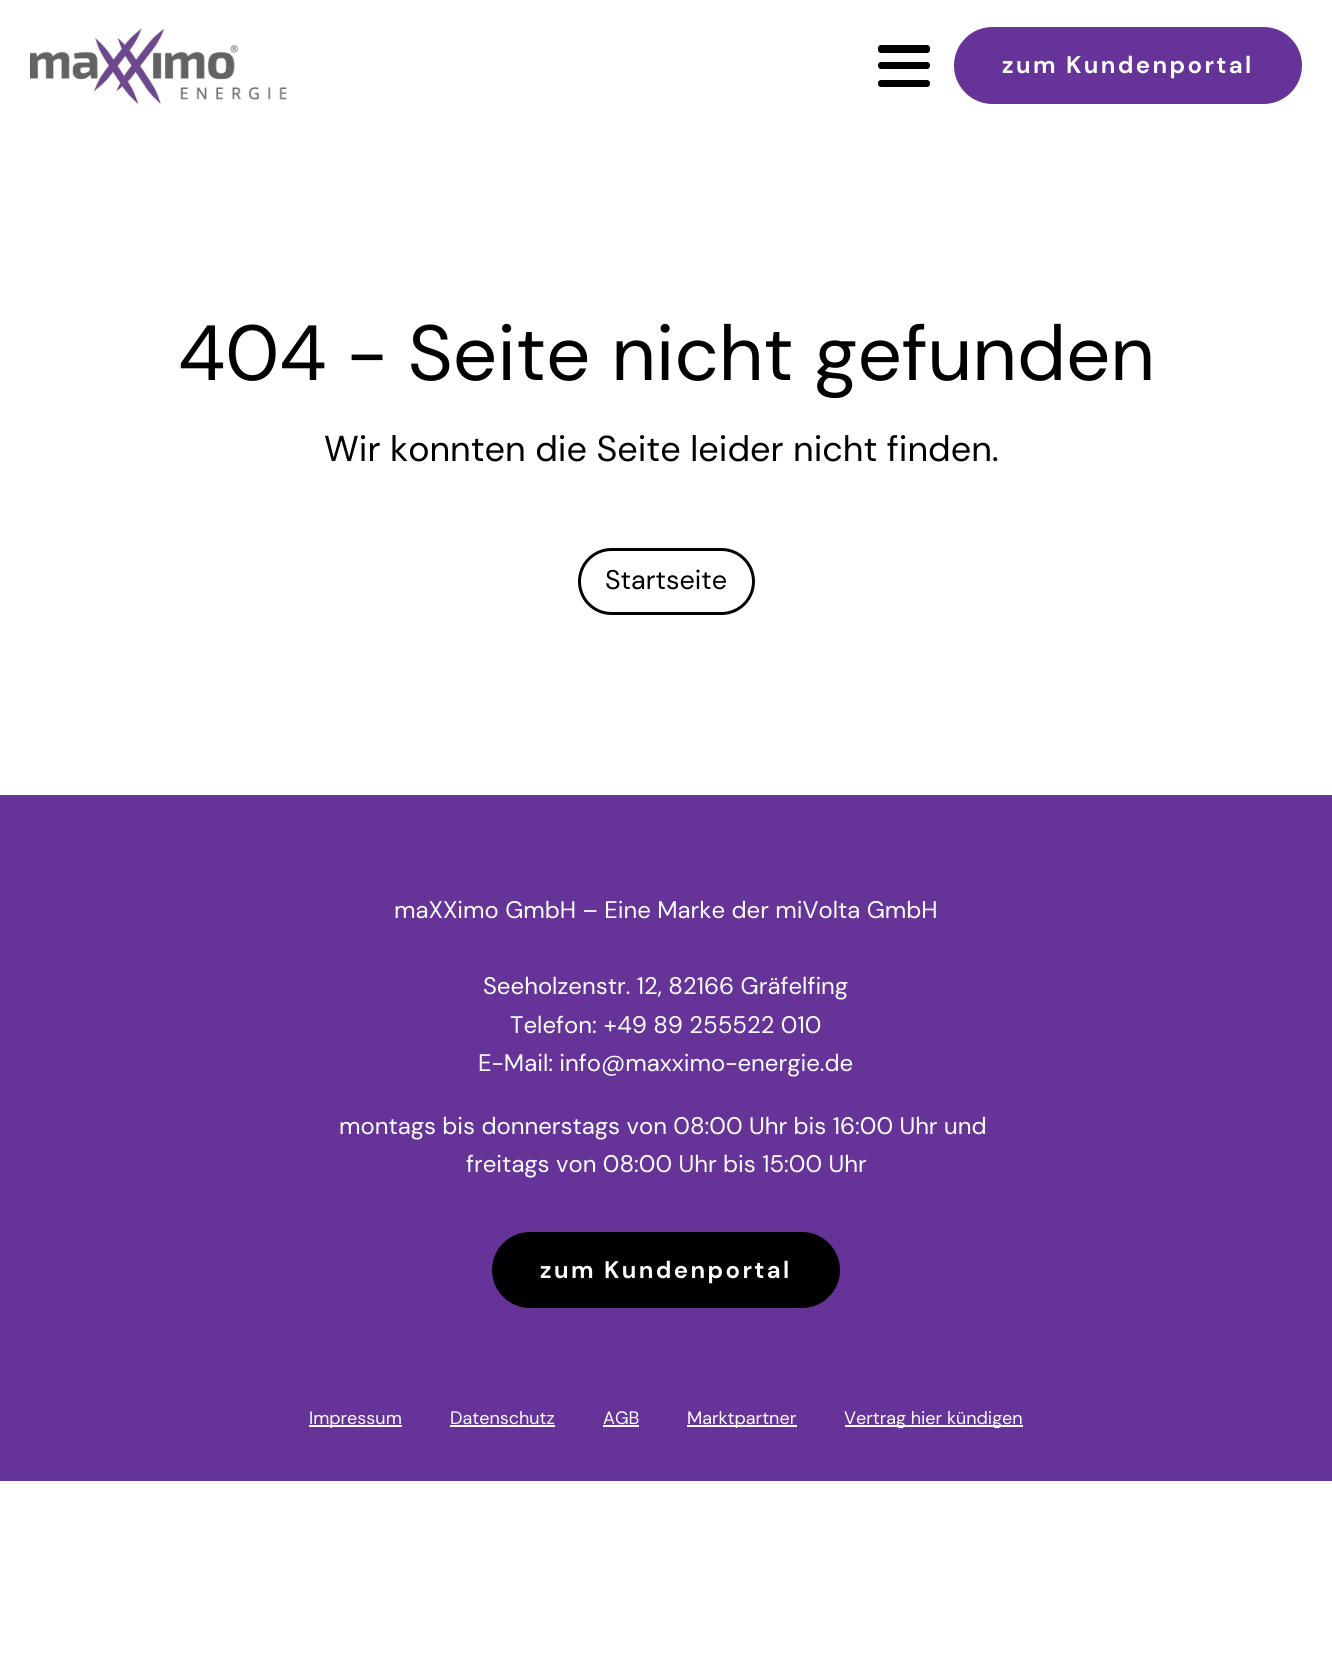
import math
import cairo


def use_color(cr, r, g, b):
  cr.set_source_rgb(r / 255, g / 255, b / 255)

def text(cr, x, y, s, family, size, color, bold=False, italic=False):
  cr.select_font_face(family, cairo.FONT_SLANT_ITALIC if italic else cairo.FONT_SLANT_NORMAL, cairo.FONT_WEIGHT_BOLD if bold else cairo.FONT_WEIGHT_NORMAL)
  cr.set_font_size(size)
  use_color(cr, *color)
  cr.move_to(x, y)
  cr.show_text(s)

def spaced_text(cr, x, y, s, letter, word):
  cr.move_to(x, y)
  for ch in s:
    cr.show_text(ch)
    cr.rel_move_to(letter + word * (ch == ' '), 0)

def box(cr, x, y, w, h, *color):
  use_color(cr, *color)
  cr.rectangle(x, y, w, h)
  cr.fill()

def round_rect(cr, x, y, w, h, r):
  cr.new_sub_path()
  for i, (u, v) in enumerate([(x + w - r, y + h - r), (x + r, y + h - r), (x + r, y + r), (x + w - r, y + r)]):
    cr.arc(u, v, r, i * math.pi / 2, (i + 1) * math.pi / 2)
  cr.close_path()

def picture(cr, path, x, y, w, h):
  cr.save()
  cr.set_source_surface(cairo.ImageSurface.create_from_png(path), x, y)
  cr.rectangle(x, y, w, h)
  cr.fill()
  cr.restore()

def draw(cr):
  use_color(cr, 255, 255, 255)
  cr.paint()
  picture(cr, "img_01.png", 30, 28, 257, 76)
  use_color(cr, 0, 0, 0)
  round_rect(cr, 878, 45, 52, 8, 3)
  cr.fill()
  round_rect(cr, 878, 62, 52, 7, 3)
  cr.fill()
  round_rect(cr, 878, 80, 52, 7, 3)
  cr.fill()
  use_color(cr, 102, 51, 153)
  round_rect(cr, 954, 27, 348, 77, 38.5)
  cr.fill()
  round_rect(cr, 579.5, 549.5, 174, 64, 32)
  use_color(cr, 0, 0, 0)
  cr.set_line_width(3)
  cr.stroke()
  box(cr, 0, 795, 1332, 686, 102, 51, 153)
  use_color(cr, 0, 0, 0)
  round_rect(cr, 492, 1232, 348, 76, 38)
  cr.fill()
  box(cr, 309, 1425, 93, 2, 255, 255, 255)
  box(cr, 450, 1425, 105, 2, 255, 255, 255)
  box(cr, 603, 1425, 36, 2, 255, 255, 255)
  box(cr, 687, 1425, 110, 2, 255, 255, 255)
  box(cr, 845, 1425, 178, 2, 255, 255, 255)
  cr.select_font_face("DM Sans", cairo.FONT_SLANT_NORMAL, cairo.FONT_WEIGHT_BOLD)
  cr.set_font_size(24)
  spaced_text(cr, 1002, 73, "zum Kundenportal", 2.4, 0)
  text(cr, 178, 380, "404 - Seite nicht gefunden", "DM Sans", 78, (0, 0, 0))
  text(cr, 324, 461, "Wir konnten die Seite leider nicht finden.", "DM Sans", 36, (0, 0, 0))
  text(cr, 605, 589, "Startseite", "DM Sans", 27, (0, 0, 0))
  text(cr, 394, 918, "maXXimo GmbH – Eine Marke der miVolta GmbH", "DM Sans", 24, (255, 255, 255))
  text(cr, 483, 994, "Seeholzenstr. 12, 82166 Gräfelfing", "DM Sans", 24, (255, 255, 255))
  text(cr, 510, 1033, "Telefon: +49 89 255522 010", "DM Sans", 24, (255, 255, 255))
  text(cr, 478, 1071, "E-Mail: info@maxximo-energie.de", "DM Sans", 24, (255, 255, 255))
  text(cr, 339, 1134, "montags bis donnerstags von 08:00 Uhr bis 16:00 Uhr und", "DM Sans", 24, (255, 255, 255))
  text(cr, 466, 1172, "freitags von 08:00 Uhr bis 15:00 Uhr", "DM Sans", 24, (255, 255, 255))
  cr.select_font_face("DM Sans", cairo.FONT_SLANT_NORMAL, cairo.FONT_WEIGHT_BOLD)
  spaced_text(cr, 540, 1278, "zum Kundenportal", 2.4, 0)
  text(cr, 309, 1424, "Impressum", "DM Sans", 18, (255, 255, 255))
  text(cr, 450, 1424, "Datenschutz", "DM Sans", 18, (255, 255, 255))
  text(cr, 603, 1424, "AGB", "DM Sans", 18, (255, 255, 255))
  text(cr, 687, 1424, "Marktpartner", "DM Sans", 18, (255, 255, 255))
  text(cr, 844, 1424, "Vertrag hier kündigen", "DM Sans", 18, (255, 255, 255))


surface = cairo.ImageSurface(cairo.FORMAT_RGB24, 1332, 1665)
cr = cairo.Context(surface)
options = cairo.FontOptions()
options.set_hint_metrics(cairo.HINT_METRICS_OFF)
options.set_hint_style(cairo.HINT_STYLE_NONE)
cr.set_font_options(options)
cr.set_miter_limit(4)
draw(cr)
surface.write_to_png("out.png")
